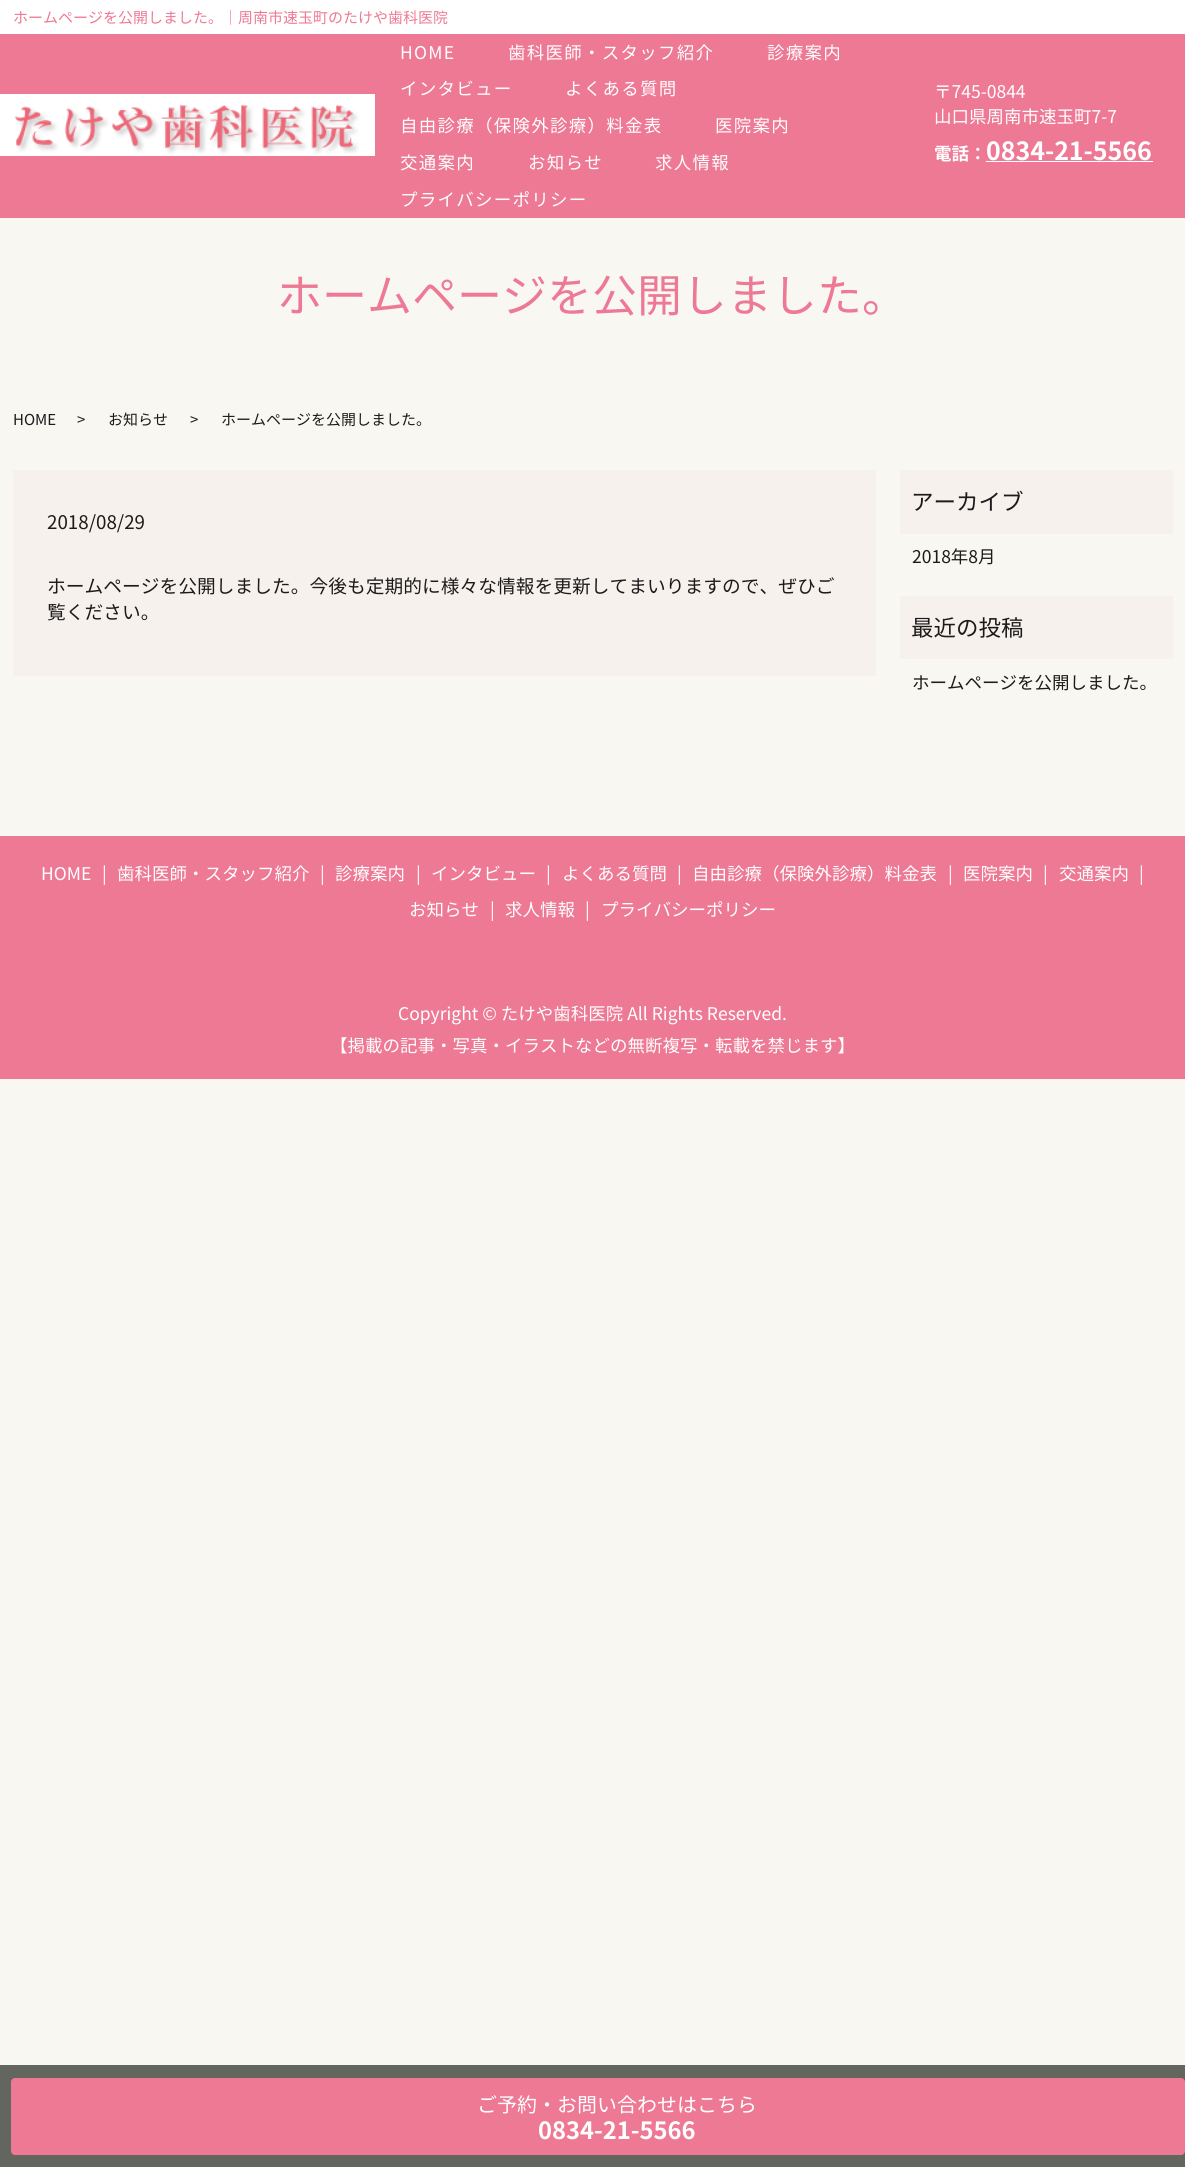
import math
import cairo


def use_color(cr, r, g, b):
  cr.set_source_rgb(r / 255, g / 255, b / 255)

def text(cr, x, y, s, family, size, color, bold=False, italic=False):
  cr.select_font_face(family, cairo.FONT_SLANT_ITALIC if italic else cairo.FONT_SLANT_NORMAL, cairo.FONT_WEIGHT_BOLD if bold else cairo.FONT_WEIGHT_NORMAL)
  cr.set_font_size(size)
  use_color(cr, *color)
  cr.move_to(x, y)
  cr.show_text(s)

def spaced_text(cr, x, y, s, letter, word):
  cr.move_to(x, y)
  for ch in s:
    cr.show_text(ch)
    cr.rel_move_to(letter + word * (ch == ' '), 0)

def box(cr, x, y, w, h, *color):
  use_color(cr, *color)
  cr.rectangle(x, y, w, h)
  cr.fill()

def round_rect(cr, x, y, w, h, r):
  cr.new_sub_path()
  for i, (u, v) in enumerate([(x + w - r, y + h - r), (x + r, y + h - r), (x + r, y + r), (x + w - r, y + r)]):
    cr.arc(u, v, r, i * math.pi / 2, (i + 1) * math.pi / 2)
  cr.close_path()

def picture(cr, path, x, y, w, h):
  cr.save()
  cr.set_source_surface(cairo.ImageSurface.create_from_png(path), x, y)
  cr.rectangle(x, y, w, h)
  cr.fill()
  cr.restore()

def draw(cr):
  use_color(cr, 248, 247, 242)
  cr.paint()
  box(cr, 0, 34, 1185, 184, 237, 121, 148)
  box(cr, 0, 0, 1185, 34, 255, 255, 255)
  picture(cr, "img_01.png", 0, 94, 375, 62)
  box(cr, 986, 161, 167, 1, 255, 255, 255)
  box(cr, 13, 470, 863, 206, 247, 241, 237)
  box(cr, 900, 470, 273, 64, 247, 241, 237)
  box(cr, 900, 596, 273, 63, 247, 241, 237)
  box(cr, 0, 836, 1185, 243, 237, 121, 148)
  box(cr, 0, 2065, 1185, 102, 99, 102, 94)
  use_color(cr, 237, 121, 148)
  round_rect(cr, 11, 2078, 1174, 77, 4)
  cr.fill()
  text(cr, 13, 23, "ホームページを公開しました。｜周南市速玉町のたけや歯科医院", "Noto Sans JP", 15, (237, 121, 148))
  cr.set_font_size(17.5)
  use_color(cr, 255, 255, 255)
  spaced_text(cr, 400, 59, "HOME", 1.25, 0)
  spaced_text(cr, 508, 59, "歯科医師・スタッフ紹介", 1.25, 0)
  spaced_text(cr, 767, 59, "診療案内", 1.25, 0)
  spaced_text(cr, 400, 95, "インタビュー", 1.25, 0)
  spaced_text(cr, 565, 95, "よくある質問", 1.25, 0)
  spaced_text(cr, 400, 132, "自由診療（保険外診療）料金表", 1.25, 0)
  spaced_text(cr, 715, 132, "医院案内", 1.25, 0)
  spaced_text(cr, 400, 169, "交通案内", 1.25, 0)
  spaced_text(cr, 528, 169, "お知らせ", 1.25, 0)
  spaced_text(cr, 655, 169, "求人情報", 1.25, 0)
  spaced_text(cr, 400, 206, "プライバシーポリシー", 1.25, 0)
  text(cr, 934, 98, "〒745-0844", "Noto Sans JP", 17.5, (255, 255, 255))
  text(cr, 934, 123, "山口県周南市速玉町7-7", "Noto Sans JP", 17.5, (255, 255, 255))
  text(cr, 934, 160, "電話：", "Noto Sans JP", 17.5, (255, 255, 255), bold=True)
  text(cr, 986, 160, "0834-21-5566", "Noto Sans JP", 25, (255, 255, 255), bold=True)
  text(cr, 277, 312, "ホームページを公開しました。", "Noto Sans JP", 45, (237, 121, 148))
  text(cr, 13, 425, "HOME", "Noto Sans JP", 15, (27, 27, 27))
  text(cr, 77, 425, ">", "Noto Sans JP", 15, (27, 27, 27))
  text(cr, 108, 425, "お知らせ", "Noto Sans JP", 15, (27, 27, 27))
  text(cr, 190, 425, ">", "Noto Sans JP", 15, (27, 27, 27))
  text(cr, 221, 425, "ホームページを公開しました。", "Noto Sans JP", 15, (27, 27, 27))
  text(cr, 47, 529, "2018/08/29", "Noto Sans JP", 18.75, (27, 27, 27))
  text(cr, 47, 593, "ホームページを公開しました。今後も定期的に様々な情報を更新してまいりますので、ぜひご", "Noto Sans JP", 18.75, (27, 27, 27))
  text(cr, 47, 619, "覧ください。", "Noto Sans JP", 18.75, (27, 27, 27))
  text(cr, 911, 510, "アーカイブ", "Noto Sans JP", 22.5, (27, 27, 27))
  text(cr, 912, 563, "2018年8月", "Noto Sans JP", 17.5, (27, 27, 27))
  text(cr, 911, 636, "最近の投稿", "Noto Sans JP", 22.5, (27, 27, 27))
  text(cr, 912, 689, "ホームページを公開しました。", "Noto Sans JP", 17.5, (27, 27, 27))
  text(cr, 102, 880, "|", "Noto Sans JP", 17.5, (255, 255, 255))
  text(cr, 117, 880, "歯科医師・スタッフ紹介", "Noto Sans JP", 17.5, (255, 255, 255))
  text(cr, 320, 880, "|", "Noto Sans JP", 17.5, (255, 255, 255))
  text(cr, 335, 880, "診療案内", "Noto Sans JP", 17.5, (255, 255, 255))
  text(cr, 1139, 880, "|", "Noto Sans JP", 17.5, (255, 255, 255))
  text(cr, 409, 916, "お知らせ", "Noto Sans JP", 17.5, (255, 255, 255))
  text(cr, 41, 880, "HOME", "Noto Sans JP", 17.5, (255, 255, 255))
  text(cr, 416, 880, "|", "Noto Sans JP", 17.5, (255, 255, 255))
  text(cr, 431, 880, "インタビュー", "Noto Sans JP", 17.5, (255, 255, 255))
  text(cr, 546, 880, "|", "Noto Sans JP", 17.5, (255, 255, 255))
  text(cr, 562, 880, "よくある質問", "Noto Sans JP", 17.5, (255, 255, 255))
  text(cr, 677, 880, "|", "Noto Sans JP", 17.5, (255, 255, 255))
  text(cr, 692, 880, "自由診療（保険外診療）料金表", "Noto Sans JP", 17.5, (255, 255, 255))
  text(cr, 948, 880, "|", "Noto Sans JP", 17.5, (255, 255, 255))
  text(cr, 963, 880, "医院案内", "Noto Sans JP", 17.5, (255, 255, 255))
  text(cr, 1043, 880, "|", "Noto Sans JP", 17.5, (255, 255, 255))
  text(cr, 1059, 880, "交通案内", "Noto Sans JP", 17.5, (255, 255, 255))
  text(cr, 490, 916, "|", "Noto Sans JP", 17.5, (255, 255, 255))
  text(cr, 505, 916, "求人情報", "Noto Sans JP", 17.5, (255, 255, 255))
  text(cr, 585, 916, "|", "Noto Sans JP", 17.5, (255, 255, 255))
  text(cr, 601, 916, "プライバシーポリシー", "Noto Sans JP", 17.5, (255, 255, 255))
  text(cr, 398, 1020, "Copyright © たけや歯科医院 All Rights Reserved.", "Noto Sans JP", 17.5, (255, 255, 255))
  text(cr, 330, 1052, "【掲載の記事・写真・イラストなどの無断複写・転載を禁じます】", "Noto Sans JP", 17.5, (255, 255, 255))
  text(cr, 477, 2112, "ご予約・お問い合わせはこちら", "Noto Sans JP", 20, (255, 255, 255))
  text(cr, 538, 2139, "0834-21-5566", "Noto Sans JP", 23.75, (255, 255, 255), bold=True)


surface = cairo.ImageSurface(cairo.FORMAT_RGB24, 1185, 2167)
cr = cairo.Context(surface)
options = cairo.FontOptions()
options.set_hint_metrics(cairo.HINT_METRICS_OFF)
options.set_hint_style(cairo.HINT_STYLE_NONE)
cr.set_font_options(options)
cr.set_miter_limit(4)
draw(cr)
surface.write_to_png("out.png")
